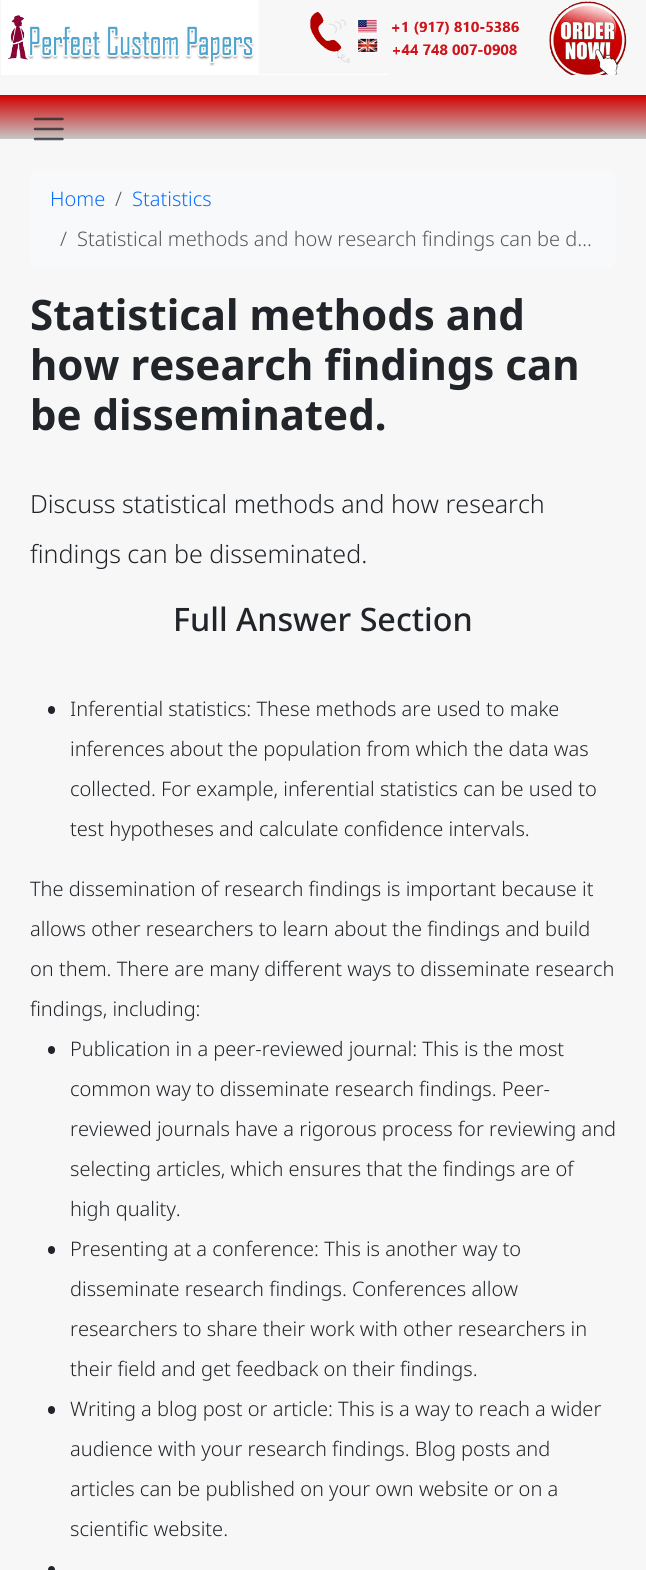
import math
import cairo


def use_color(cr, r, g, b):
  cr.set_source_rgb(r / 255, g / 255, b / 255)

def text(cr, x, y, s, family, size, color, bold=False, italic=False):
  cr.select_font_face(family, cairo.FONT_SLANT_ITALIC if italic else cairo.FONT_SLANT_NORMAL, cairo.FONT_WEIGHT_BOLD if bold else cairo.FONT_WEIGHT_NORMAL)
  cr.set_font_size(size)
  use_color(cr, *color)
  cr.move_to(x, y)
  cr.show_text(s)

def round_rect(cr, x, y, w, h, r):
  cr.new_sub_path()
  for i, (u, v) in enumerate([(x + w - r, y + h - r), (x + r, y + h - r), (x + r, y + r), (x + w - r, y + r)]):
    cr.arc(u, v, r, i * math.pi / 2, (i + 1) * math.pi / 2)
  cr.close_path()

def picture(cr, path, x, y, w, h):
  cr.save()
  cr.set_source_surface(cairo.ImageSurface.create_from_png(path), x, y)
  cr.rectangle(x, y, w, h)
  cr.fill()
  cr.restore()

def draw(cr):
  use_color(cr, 247, 247, 247)
  cr.paint()
  picture(cr, "img_01.png", 1, 0, 626, 75)
  gradient = cairo.LinearGradient(323, 95, 323, 139)
  gradient.add_color_stop_rgba(0, 0.824, 0, 0, 1)
  gradient.add_color_stop_rgba(1, 0.776, 0.776, 0.776, 1)
  cr.set_source(gradient)
  cr.rectangle(0, 95, 646, 44)
  cr.fill()
  cr.new_path()
  cr.move_to(35, 119)
  cr.line_to(62.5, 119)
  cr.move_to(35, 129)
  cr.line_to(62.5, 129)
  cr.move_to(35, 139)
  cr.line_to(62.5, 139)
  cr.set_source_rgba(0.129, 0.145, 0.161, 0.75)
  cr.set_line_width(2.5)
  cr.set_line_cap(cairo.LINE_CAP_ROUND)
  cr.stroke()
  use_color(cr, 248, 249, 250)
  round_rect(cr, 30, 169, 586, 100, 10)
  cr.fill()
  use_color(cr, 33, 37, 41)
  round_rect(cr, 48, 706, 7, 8, 3.5)
  cr.fill()
  round_rect(cr, 48, 1046, 7, 8, 3.5)
  cr.fill()
  round_rect(cr, 48, 1246, 7, 8, 3.5)
  cr.fill()
  round_rect(cr, 48, 1406, 7, 8, 3.5)
  cr.fill()
  round_rect(cr, 48, 1566, 7, 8, 3.5)
  cr.fill()
  text(cr, 50, 206, "Home", "Noto Sans Light", 20, (13, 110, 253))
  text(cr, 115, 206, "/", "Noto Sans Light", 20, (87, 90, 93))
  text(cr, 132, 206, "Statistics", "Noto Sans Light", 20, (13, 110, 253))
  text(cr, 60, 246, "/", "Noto Sans Light", 20, (87, 90, 93))
  text(cr, 77, 246, "Statistical methods and how research findings can be d…", "Noto Sans Light", 20, (87, 90, 93))
  text(cr, 30, 330, "Statistical methods and", "Noto Sans", 42, (33, 37, 41), bold=True)
  text(cr, 30, 380, "how research findings can", "Noto Sans", 42, (33, 37, 41), bold=True)
  text(cr, 30, 430, "be disseminated.", "Noto Sans", 42, (33, 37, 41), bold=True)
  text(cr, 30, 513, "Discuss statistical methods and how research", "Noto Sans Light", 25, (33, 37, 41))
  text(cr, 30, 563, "findings can be disseminated.", "Noto Sans Light", 25, (33, 37, 41))
  text(cr, 173, 631, "Full Answer Section", "Noto Sans Medium", 32.25, (33, 37, 41))
  text(cr, 70, 716, "Inferential statistics: These methods are used to make", "Noto Sans Light", 20, (33, 37, 41))
  text(cr, 70, 756, "inferences about the population from which the data was", "Noto Sans Light", 20, (33, 37, 41))
  text(cr, 70, 796, "collected. For example, inferential statistics can be used to", "Noto Sans Light", 20, (33, 37, 41))
  text(cr, 70, 836, "test hypotheses and calculate confidence intervals.", "Noto Sans Light", 20, (33, 37, 41))
  text(cr, 30, 896, "The dissemination of research findings is important because it", "Noto Sans Light", 20, (33, 37, 41))
  text(cr, 30, 936, "allows other researchers to learn about the findings and build", "Noto Sans Light", 20, (33, 37, 41))
  text(cr, 30, 976, "on them. There are many different ways to disseminate research", "Noto Sans Light", 20, (33, 37, 41))
  text(cr, 30, 1016, "findings, including:", "Noto Sans Light", 20, (33, 37, 41))
  text(cr, 70, 1056, "Publication in a peer-reviewed journal: This is the most", "Noto Sans Light", 20, (33, 37, 41))
  text(cr, 70, 1096, "common way to disseminate research findings. Peer-", "Noto Sans Light", 20, (33, 37, 41))
  text(cr, 70, 1136, "reviewed journals have a rigorous process for reviewing and", "Noto Sans Light", 20, (33, 37, 41))
  text(cr, 70, 1176, "selecting articles, which ensures that the findings are of", "Noto Sans Light", 20, (33, 37, 41))
  text(cr, 70, 1216, "high quality.", "Noto Sans Light", 20, (33, 37, 41))
  text(cr, 70, 1256, "Presenting at a conference: This is another way to", "Noto Sans Light", 20, (33, 37, 41))
  text(cr, 70, 1296, "disseminate research findings. Conferences allow", "Noto Sans Light", 20, (33, 37, 41))
  text(cr, 70, 1336, "researchers to share their work with other researchers in", "Noto Sans Light", 20, (33, 37, 41))
  text(cr, 70, 1376, "their field and get feedback on their findings.", "Noto Sans Light", 20, (33, 37, 41))
  text(cr, 70, 1416, "Writing a blog post or article: This is a way to reach a wider", "Noto Sans Light", 20, (33, 37, 41))
  text(cr, 70, 1456, "audience with your research findings. Blog posts and", "Noto Sans Light", 20, (33, 37, 41))
  text(cr, 70, 1496, "articles can be published on your own website or on a", "Noto Sans Light", 20, (33, 37, 41))
  text(cr, 70, 1536, "scientific website.", "Noto Sans Light", 20, (33, 37, 41))


surface = cairo.ImageSurface(cairo.FORMAT_RGB24, 646, 1570)
cr = cairo.Context(surface)
options = cairo.FontOptions()
options.set_hint_metrics(cairo.HINT_METRICS_OFF)
options.set_hint_style(cairo.HINT_STYLE_NONE)
cr.set_font_options(options)
cr.set_miter_limit(4)
draw(cr)
surface.write_to_png("out.png")
